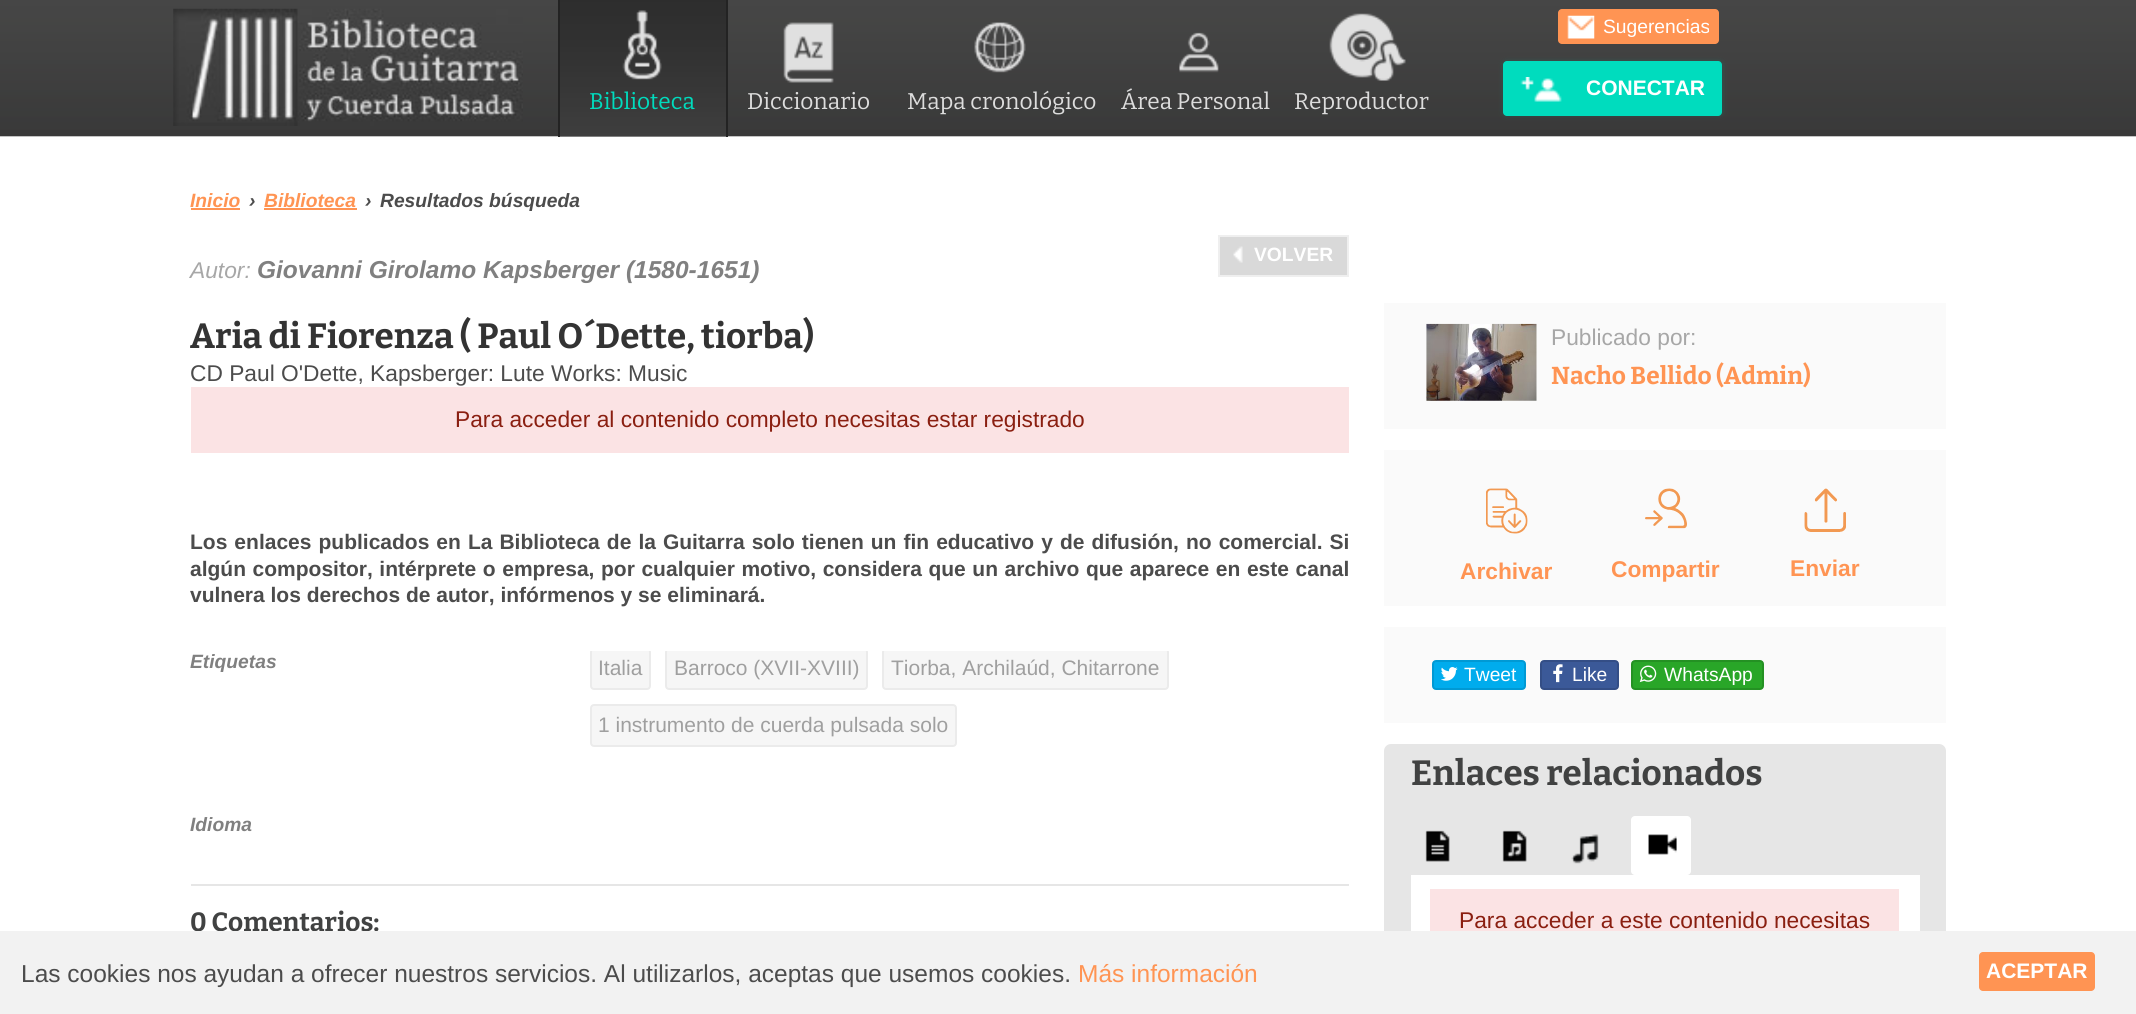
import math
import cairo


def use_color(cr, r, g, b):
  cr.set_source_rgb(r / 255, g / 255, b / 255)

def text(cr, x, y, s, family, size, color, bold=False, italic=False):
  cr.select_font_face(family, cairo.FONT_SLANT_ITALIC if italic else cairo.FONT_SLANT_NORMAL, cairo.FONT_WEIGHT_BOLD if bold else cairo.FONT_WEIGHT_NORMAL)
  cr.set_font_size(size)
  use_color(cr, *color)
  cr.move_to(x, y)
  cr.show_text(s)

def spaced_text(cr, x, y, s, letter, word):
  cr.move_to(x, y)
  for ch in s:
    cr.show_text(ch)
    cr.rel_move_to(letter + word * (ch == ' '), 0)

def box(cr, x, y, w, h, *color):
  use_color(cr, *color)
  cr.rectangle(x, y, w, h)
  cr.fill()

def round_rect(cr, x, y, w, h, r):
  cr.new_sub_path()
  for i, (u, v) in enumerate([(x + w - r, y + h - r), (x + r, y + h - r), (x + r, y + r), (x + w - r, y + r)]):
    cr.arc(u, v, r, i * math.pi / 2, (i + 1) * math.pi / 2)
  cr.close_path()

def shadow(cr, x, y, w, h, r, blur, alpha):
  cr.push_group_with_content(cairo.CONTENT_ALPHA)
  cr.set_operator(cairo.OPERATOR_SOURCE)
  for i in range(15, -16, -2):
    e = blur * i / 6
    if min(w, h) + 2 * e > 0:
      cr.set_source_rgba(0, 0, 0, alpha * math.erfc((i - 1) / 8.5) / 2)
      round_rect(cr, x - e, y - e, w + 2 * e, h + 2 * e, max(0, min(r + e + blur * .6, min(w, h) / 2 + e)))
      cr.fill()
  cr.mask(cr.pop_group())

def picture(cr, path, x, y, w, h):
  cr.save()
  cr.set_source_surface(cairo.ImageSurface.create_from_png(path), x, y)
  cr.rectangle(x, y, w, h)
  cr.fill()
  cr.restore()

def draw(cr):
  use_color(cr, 255, 255, 255)
  cr.paint()
  picture(cr, "img_01.png", 0, 0, 2136, 137)
  picture(cr, "img_02.png", 173, 8, 350, 118)
  use_color(cr, 255, 148, 83)
  round_rect(cr, 1558, 9, 161, 35, 4)
  cr.fill()
  picture(cr, "img_03.png", 1567, 15, 28, 24)
  use_color(cr, 9, 134, 117)
  shadow(cr, 1502, 60, 222, 57, 5, 2, 0.2)
  use_color(cr, 0, 220, 190)
  round_rect(cr, 1503, 61, 219, 55, 4)
  cr.fill()
  picture(cr, "img_04.png", 1520, 77, 42, 25)
  picture(cr, "img_05.png", 560, 0, 166, 137)
  box(cr, 726, 0, 2, 137, 35, 35, 35)
  box(cr, 558, 0, 2, 137, 35, 35, 35)
  picture(cr, "img_06.png", 622, 10, 40, 70)
  picture(cr, "img_07.png", 783, 22, 51, 61)
  picture(cr, "img_08.png", 974, 22, 52, 51)
  picture(cr, "img_09.png", 1179, 32, 40, 41)
  picture(cr, "img_10.png", 1329, 13, 77, 68)
  box(cr, 191, 208, 49, 2, 255, 148, 83)
  box(cr, 264, 208, 93, 2, 255, 148, 83)
  use_color(cr, 217, 217, 217)
  cr.rectangle(1219, 236, 129, 40)
  cr.fill_preserve()
  use_color(cr, 239, 239, 239)
  cr.stroke()
  picture(cr, "img_11.png", 1233, 246, 10, 17)
  box(cr, 191, 387, 1158, 66, 251, 227, 228)
  box(cr, 191, 884, 1158, 2, 230, 230, 230)
  cr.save()
  cr.rectangle(191, 651, 1158, 233)
  cr.clip()
  use_color(cr, 246, 246, 246)
  round_rect(cr, 591, 649, 59, 40, 3)
  cr.fill_preserve()
  use_color(cr, 235, 235, 235)
  cr.stroke()
  use_color(cr, 246, 246, 246)
  round_rect(cr, 666, 649, 201, 40, 3)
  cr.fill_preserve()
  use_color(cr, 235, 235, 235)
  cr.stroke()
  use_color(cr, 246, 246, 246)
  round_rect(cr, 883, 649, 285, 40, 3)
  cr.fill_preserve()
  use_color(cr, 235, 235, 235)
  cr.stroke()
  cr.restore()
  use_color(cr, 246, 246, 246)
  round_rect(cr, 591, 705, 365, 41, 3)
  cr.fill_preserve()
  use_color(cr, 235, 235, 235)
  cr.stroke()
  box(cr, 1384, 303, 562, 126, 250, 250, 250)
  picture(cr, "img_12.png", 1426, 323, 111, 78)
  box(cr, 1384, 450, 562, 156, 250, 250, 250)
  picture(cr, "img_13.png", 1486, 488, 42, 46)
  picture(cr, "img_14.png", 1645, 488, 42, 41)
  picture(cr, "img_15.png", 1804, 488, 42, 44)
  box(cr, 1384, 627, 562, 96, 250, 250, 250)
  use_color(cr, 0, 172, 237)
  round_rect(cr, 1433, 661, 92, 28, 3)
  cr.fill_preserve()
  use_color(cr, 0, 153, 212)
  cr.stroke()
  picture(cr, "img_16.png", 1441, 667, 17, 14)
  use_color(cr, 59, 89, 152)
  round_rect(cr, 1541, 661, 77, 28, 3)
  cr.fill_preserve()
  use_color(cr, 52, 78, 134)
  cr.stroke()
  picture(cr, "img_17.png", 1553, 664, 10, 19)
  use_color(cr, 41, 166, 40)
  round_rect(cr, 1632, 661, 131, 28, 3)
  cr.fill_preserve()
  use_color(cr, 36, 145, 35)
  cr.stroke()
  picture(cr, "img_18.png", 1639, 665, 18, 18)
  use_color(cr, 230, 230, 230)
  round_rect(cr, 1384, 744, 562, 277, 7)
  cr.fill()
  picture(cr, "img_19.png", 1425, 830, 25, 32)
  picture(cr, "img_20.png", 1502, 830, 25, 32)
  picture(cr, "img_21.png", 1571, 834, 28, 30)
  use_color(cr, 255, 255, 255)
  round_rect(cr, 1631, 816, 60, 59, 4)
  cr.fill()
  picture(cr, "img_22.png", 1648, 834, 29, 21)
  box(cr, 1411, 875, 509, 56, 255, 255, 255)
  box(cr, 1430, 889, 469, 42, 251, 227, 228)
  text(cr, 1603, 33, "Sugerencias", "Liberation Sans", 19.25, (255, 255, 255))
  text(cr, 1586, 95, "CONECTAR", "Liberation Sans", 21, (255, 255, 255), bold=True)
  text(cr, 589, 109, "Biblioteca", "Bitter", 22.75, (0, 220, 190))
  text(cr, 747, 109, "Diccionario", "Bitter", 22.75, (221, 221, 221))
  text(cr, 907, 109, "Mapa cronológico", "Bitter", 22.75, (221, 221, 221))
  text(cr, 1121, 109, "Área Personal", "Bitter", 22.75, (221, 221, 221))
  text(cr, 1294, 109, "Reproductor", "Bitter", 22.75, (221, 221, 221))
  text(cr, 190, 207, "Inicio", "Liberation Sans", 19.25, (255, 148, 83), bold=True, italic=True)
  text(cr, 249, 207, "›", "Liberation Sans", 19.25, (76, 76, 76), bold=True, italic=True)
  text(cr, 264, 207, "Biblioteca", "Liberation Sans", 19.25, (255, 148, 83), bold=True, italic=True)
  text(cr, 365, 207, "›", "Liberation Sans", 19.25, (76, 76, 76), bold=True, italic=True)
  text(cr, 380, 207, "Resultados búsqueda", "Liberation Sans", 19.25, (76, 76, 76), bold=True, italic=True)
  text(cr, 1254, 261, "VOLVER", "Liberation Sans", 19.25, (255, 255, 255), bold=True)
  text(cr, 190, 278, "Autor:", "Liberation Sans", 22.75, (167, 167, 167), italic=True)
  text(cr, 257, 278, "Giovanni Girolamo Kapsberger (1580-1651)", "Liberation Sans", 24.5, (128, 128, 128), bold=True, italic=True)
  text(cr, 190, 348, "Aria di Fiorenza ( Paul O´Dette, tiorba)", "Bitter", 35, (51, 51, 51), bold=True)
  text(cr, 190, 381, "CD Paul O'Dette, Kapsberger: Lute Works: Music", "Liberation Sans", 22.75, (76, 76, 76))
  text(cr, 455, 427, "Para acceder al contenido completo necesitas estar registrado", "Liberation Sans", 22.75, (138, 31, 17))
  cr.select_font_face("Liberation Sans", cairo.FONT_SLANT_NORMAL, cairo.FONT_WEIGHT_BOLD)
  cr.set_font_size(21)
  use_color(cr, 76, 76, 76)
  spaced_text(cr, 190, 549, "Los enlaces publicados en La Biblioteca de la Guitarra solo tienen un fin educativo y de difusión, no comercial. Si", 0, 1.2)
  spaced_text(cr, 190, 576, "algún compositor, intérprete o empresa, por cualquier motivo, considera que un archivo que aparece en este canal", 0, 0.75)
  text(cr, 190, 602, "vulnera los derechos de autor, infórmenos y se eliminará.", "Liberation Sans", 21, (76, 76, 76), bold=True)
  text(cr, 190, 668, "Etiquetas", "Liberation Sans", 19.25, (128, 128, 128), bold=True, italic=True)
  text(cr, 598, 675, "Italia", "Liberation Sans", 21, (159, 159, 159))
  text(cr, 674, 675, "Barroco (XVII-XVIII)", "Liberation Sans", 21, (159, 159, 159))
  text(cr, 891, 675, "Tiorba, Archilaúd, Chitarrone", "Liberation Sans", 21, (159, 159, 159))
  text(cr, 598, 732, "1 instrumento de cuerda pulsada solo", "Liberation Sans", 21, (159, 159, 159))
  text(cr, 190, 831, "Idioma", "Liberation Sans", 19.25, (128, 128, 128), bold=True, italic=True)
  text(cr, 190, 931, "0 Comentarios:", "Bitter", 26.25, (65, 66, 66), bold=True)
  text(cr, 1551, 345, "Publicado por:", "Liberation Sans", 22.75, (167, 167, 167))
  text(cr, 1551, 384, "Nacho Bellido (Admin)", "Bitter", 24.5, (255, 148, 83), bold=True)
  text(cr, 1460, 579, "Archivar", "Liberation Sans", 22.75, (255, 148, 83), bold=True)
  text(cr, 1611, 577, "Compartir", "Liberation Sans", 22.75, (255, 148, 83), bold=True)
  text(cr, 1790, 576, "Enviar", "Liberation Sans", 22.75, (255, 148, 83), bold=True)
  text(cr, 1464, 681, "Tweet", "Liberation Sans", 19.25, (255, 255, 255))
  text(cr, 1572, 681, "Like", "Liberation Sans", 19.25, (255, 255, 255))
  text(cr, 1664, 681, "WhatsApp", "Liberation Sans", 19.25, (255, 255, 255))
  text(cr, 1411, 785, "Enlaces relacionados", "Bitter", 35, (65, 66, 66), bold=True)
  text(cr, 1459, 928, "Para acceder a este contenido necesitas", "Liberation Sans", 22.75, (138, 31, 17))
  box(cr, 0, 931, 2136, 83, 242, 242, 242)
  text(cr, 21, 982, "Las cookies nos ayudan a ofrecer nuestros servicios. Al utilizarlos, aceptas que usemos cookies.", "Liberation Sans", 24.5, (76, 76, 76))
  text(cr, 1078, 982, "Más información", "Liberation Sans", 24.5, (255, 148, 83))
  round_rect(cr, 1979, 952, 116, 39, 4)
  cr.fill()
  text(cr, 1986, 978, "ACEPTAR", "Liberation Sans", 21, (255, 255, 255), bold=True)


surface = cairo.ImageSurface(cairo.FORMAT_RGB24, 2136, 1014)
cr = cairo.Context(surface)
options = cairo.FontOptions()
options.set_hint_metrics(cairo.HINT_METRICS_OFF)
options.set_hint_style(cairo.HINT_STYLE_NONE)
cr.set_font_options(options)
cr.set_miter_limit(4)
draw(cr)
surface.write_to_png("out.png")
